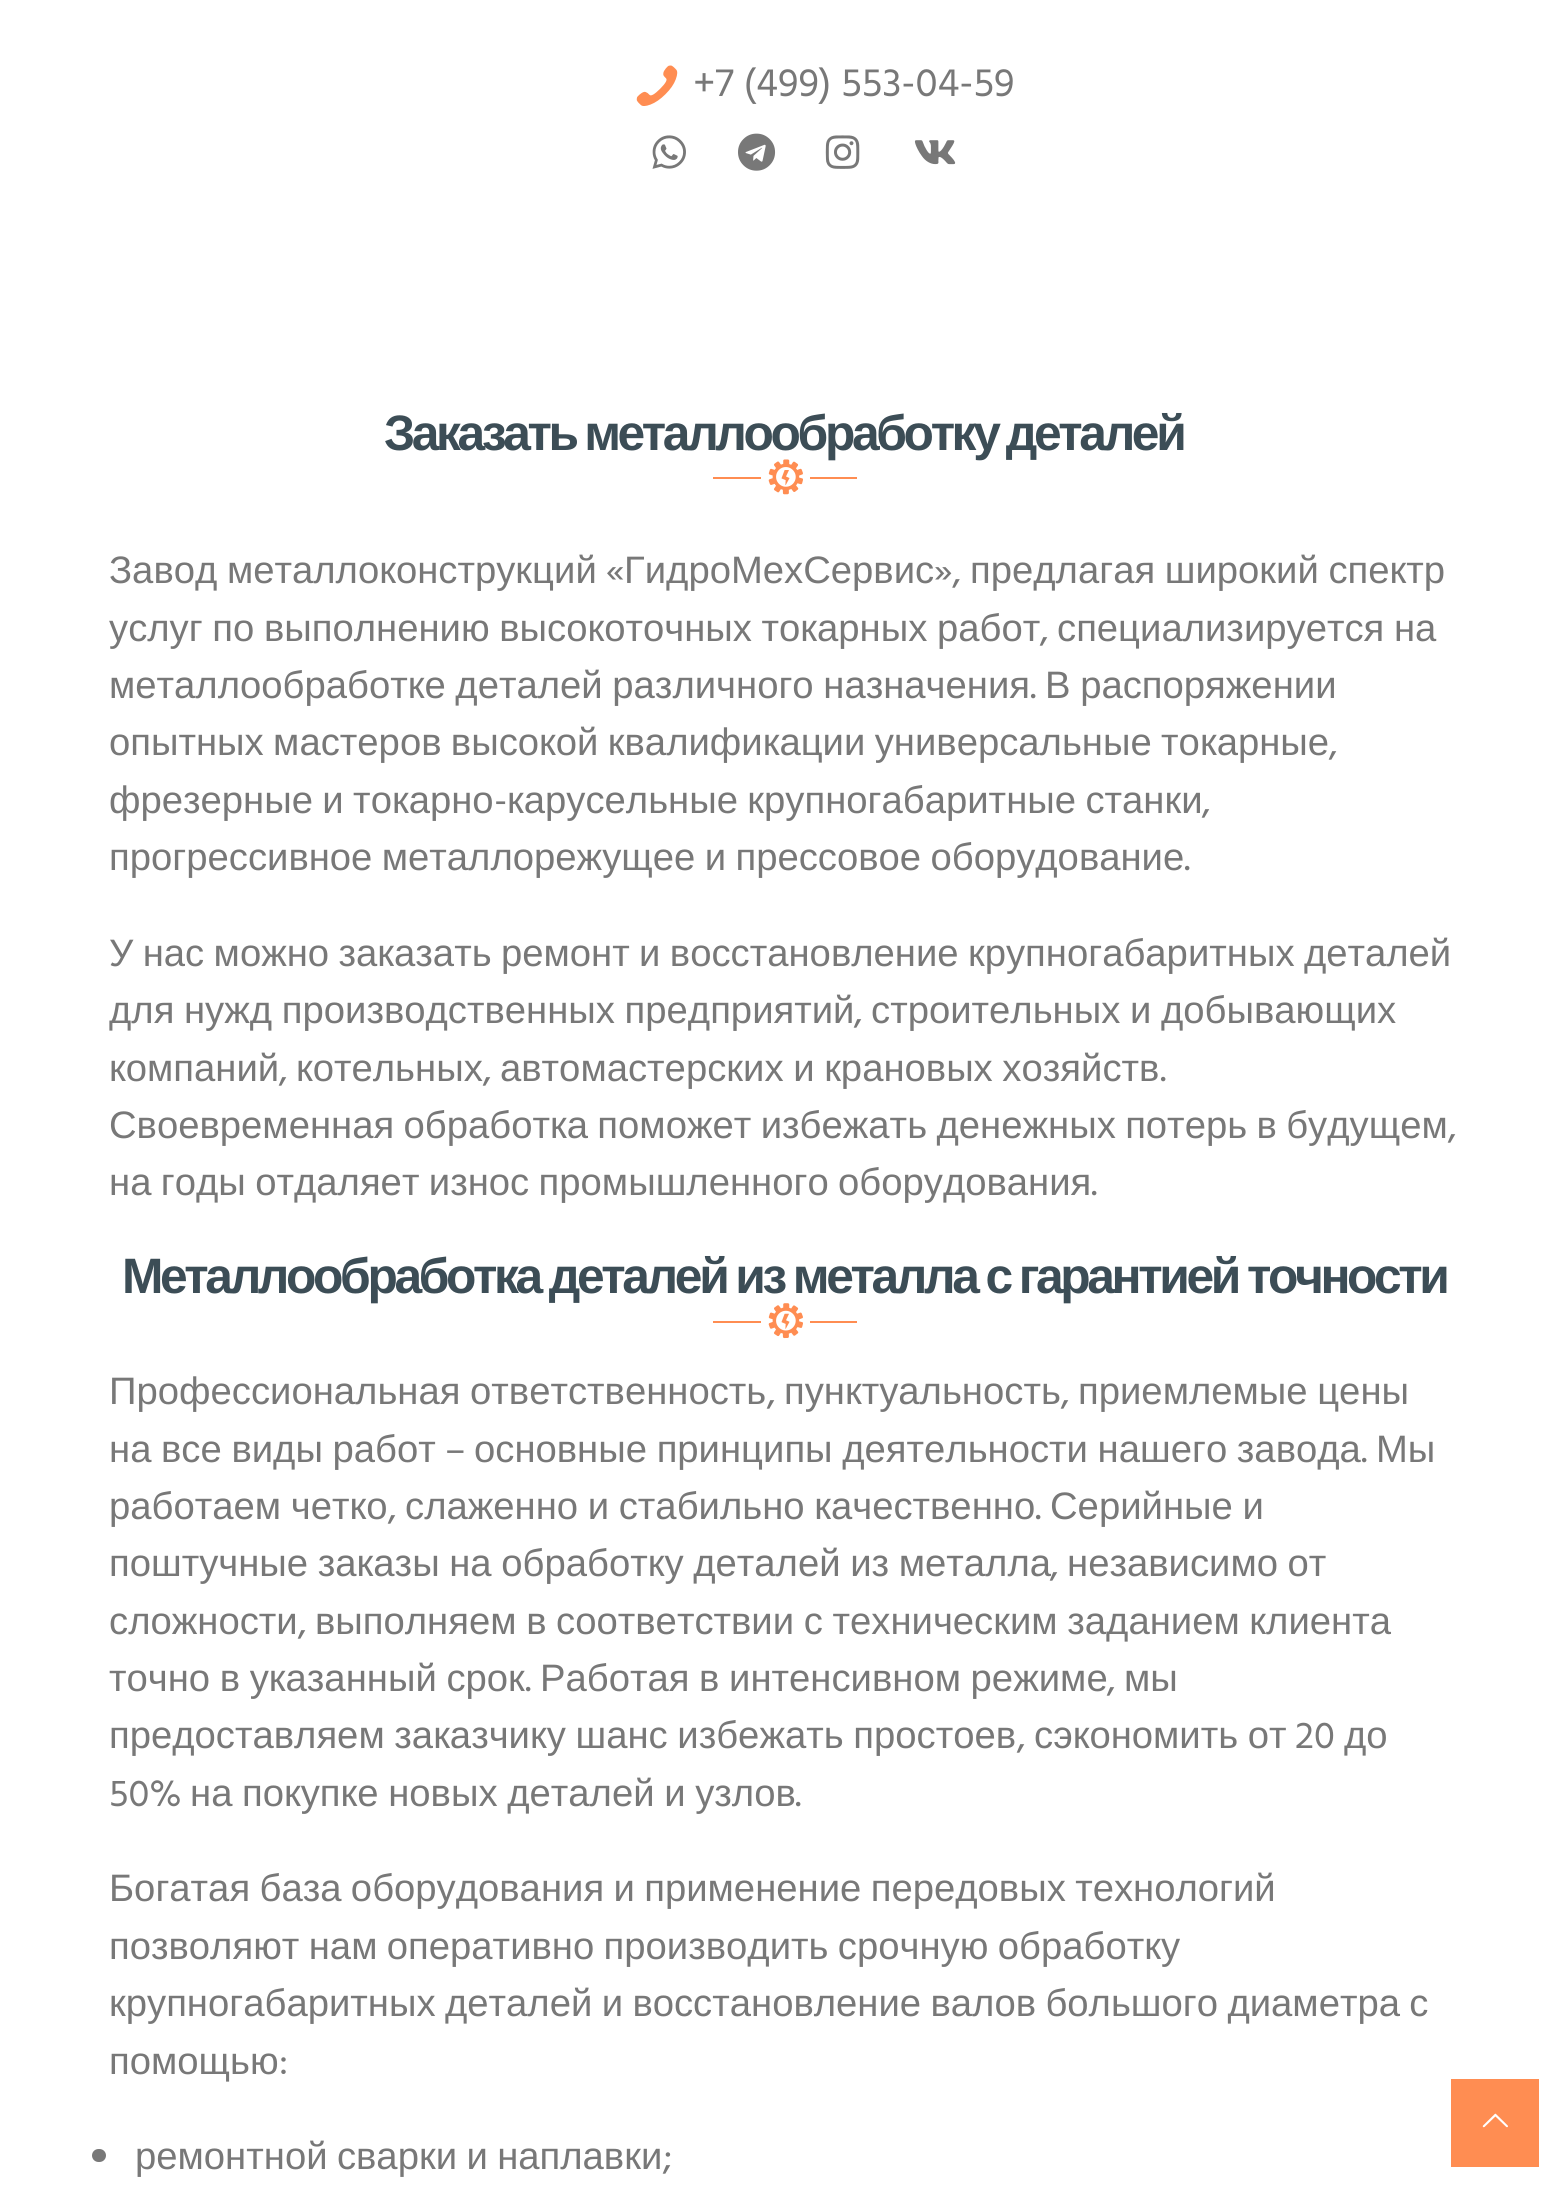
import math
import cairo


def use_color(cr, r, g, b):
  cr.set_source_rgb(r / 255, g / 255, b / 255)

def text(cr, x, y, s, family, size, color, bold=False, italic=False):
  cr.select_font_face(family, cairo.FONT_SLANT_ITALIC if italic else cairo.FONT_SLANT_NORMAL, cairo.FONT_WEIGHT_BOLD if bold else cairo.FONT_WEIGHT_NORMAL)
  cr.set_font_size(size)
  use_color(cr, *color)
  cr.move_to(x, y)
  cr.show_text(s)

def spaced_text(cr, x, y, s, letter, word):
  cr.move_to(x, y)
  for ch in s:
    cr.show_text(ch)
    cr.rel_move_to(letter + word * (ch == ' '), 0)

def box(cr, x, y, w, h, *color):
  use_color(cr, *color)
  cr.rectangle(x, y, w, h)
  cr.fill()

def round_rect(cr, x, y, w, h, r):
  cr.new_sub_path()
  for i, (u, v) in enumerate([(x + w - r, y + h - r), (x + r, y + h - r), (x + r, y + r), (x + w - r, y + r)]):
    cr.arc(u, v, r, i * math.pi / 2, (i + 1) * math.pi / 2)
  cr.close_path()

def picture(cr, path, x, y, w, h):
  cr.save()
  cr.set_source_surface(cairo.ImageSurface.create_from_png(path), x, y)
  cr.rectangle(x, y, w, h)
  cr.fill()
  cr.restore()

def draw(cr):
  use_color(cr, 255, 255, 255)
  cr.paint()
  picture(cr, "img_01.png", 636, 65, 42, 41)
  picture(cr, "img_02.png", 652, 135, 34, 34)
  picture(cr, "img_03.png", 738, 133, 38, 38)
  picture(cr, "img_04.png", 825, 135, 35, 34)
  picture(cr, "img_05.png", 914, 140, 42, 25)
  box(cr, 713, 477, 48, 2, 255, 141, 82)
  box(cr, 810, 477, 47, 2, 255, 141, 82)
  box(cr, 713, 1321, 48, 2, 255, 141, 82)
  box(cr, 810, 1321, 47, 2, 255, 141, 82)
  use_color(cr, 120, 120, 120)
  round_rect(cr, 92, 2149, 14, 13, 6.5)
  cr.fill()
  box(cr, 1451, 2079, 88, 88, 255, 141, 82)
  picture(cr, "img_08.png", 1482, 2113, 26, 15)
  text(cr, 693, 96, "+7 (499) 553-04-59", "Hind", 40.5, (120, 120, 120))
  cr.select_font_face("Liberation Sans", cairo.FONT_SLANT_NORMAL, cairo.FONT_WEIGHT_BOLD)
  cr.set_font_size(49.75)
  use_color(cr, 60, 77, 86)
  spaced_text(cr, 384, 450, "Заказать металлообработку деталей", -3.38, -2)
  picture(cr, "img_06.png", 768, 459, 35, 36)
  cr.select_font_face("Liberation Sans")
  cr.set_font_size(38.25)
  use_color(cr, 120, 120, 120)
  spaced_text(cr, 109, 583, "Завод металлоконструкций", 0, -1)
  text(cr, 606, 583, "«", "Hind", 38.25, (120, 120, 120))
  text(cr, 624, 583, "ГидроМехСервис", "Liberation Sans", 38.25, (120, 120, 120))
  text(cr, 934, 583, "»,", "Hind", 38.25, (120, 120, 120))
  cr.select_font_face("Liberation Sans")
  spaced_text(cr, 970, 583, "предлагая широкий спектр", 0, -1)
  spaced_text(cr, 109, 641, "услуг по выполнению высокоточных токарных работ", 0, -1)
  text(cr, 1040, 641, ",", "Hind", 38.25, (120, 120, 120))
  cr.select_font_face("Liberation Sans")
  spaced_text(cr, 1057, 641, "специализируется на", 0, -1)
  spaced_text(cr, 109, 698, "металлообработке деталей различного назначения", 0, -1)
  text(cr, 1030, 698, ".", "Hind", 38.25, (120, 120, 120))
  cr.select_font_face("Liberation Sans")
  spaced_text(cr, 1045, 698, "В распоряжении", 0, -1)
  spaced_text(cr, 109, 755, "опытных мастеров высокой квалификации универсальные токарные", 0, -1.25)
  text(cr, 1329, 755, ",", "Hind", 38.25, (120, 120, 120))
  cr.select_font_face("Liberation Sans")
  spaced_text(cr, 109, 813, "фрезерные и токарно", 0, -1.25)
  text(cr, 494, 813, "-", "Hind", 38.25, (120, 120, 120))
  cr.select_font_face("Liberation Sans")
  spaced_text(cr, 507, 813, "карусельные крупногабаритные станки", 0, -1.25)
  text(cr, 1202, 813, ",", "Hind", 38.25, (120, 120, 120))
  cr.select_font_face("Liberation Sans")
  spaced_text(cr, 109, 870, "прогрессивное металлорежущее и прессовое оборудование", 0, -1.25)
  text(cr, 1184, 870, ".", "Hind", 38.25, (120, 120, 120))
  cr.select_font_face("Liberation Sans")
  spaced_text(cr, 109, 966, "У нас можно заказать ремонт и восстановление крупногабаритных деталей", 0, -1.25)
  spaced_text(cr, 109, 1023, "для нужд производственных предприятий", 0, -1)
  text(cr, 854, 1023, ",", "Hind", 38.25, (120, 120, 120))
  cr.select_font_face("Liberation Sans")
  spaced_text(cr, 871, 1023, "строительных и добывающих", 0, -1)
  text(cr, 109, 1081, "компаний", "Liberation Sans", 38.25, (120, 120, 120))
  text(cr, 279, 1081, ",", "Hind", 38.25, (120, 120, 120))
  text(cr, 296, 1081, "котельных", "Liberation Sans", 38.25, (120, 120, 120))
  text(cr, 483, 1081, ",", "Hind", 38.25, (120, 120, 120))
  cr.select_font_face("Liberation Sans")
  spaced_text(cr, 500, 1081, "автомастерских и крановых хозяйств", 0, -1)
  text(cr, 1160, 1081, ".", "Hind", 38.25, (120, 120, 120))
  cr.select_font_face("Liberation Sans")
  spaced_text(cr, 109, 1138, "Своевременная обработка поможет избежать денежных потерь в будущем", 0, -1.25)
  text(cr, 1448, 1138, ",", "Hind", 38.25, (120, 120, 120))
  cr.select_font_face("Liberation Sans")
  spaced_text(cr, 109, 1195, "на годы отдаляет износ промышленного оборудования", 0, -1.25)
  text(cr, 1091, 1195, ".", "Hind", 38.25, (120, 120, 120))
  cr.select_font_face("Liberation Sans", cairo.FONT_SLANT_NORMAL, cairo.FONT_WEIGHT_BOLD)
  cr.set_font_size(49.75)
  use_color(cr, 60, 77, 86)
  spaced_text(cr, 122, 1293, "Металлообработка деталей из металла с гарантией точности", -3.38, -1.5)
  picture(cr, "img_07.png", 768, 1303, 35, 36)
  cr.select_font_face("Liberation Sans")
  cr.set_font_size(38.25)
  use_color(cr, 120, 120, 120)
  spaced_text(cr, 109, 1404, "Профессиональная ответственность", 0, -1)
  text(cr, 767, 1404, ",", "Hind", 38.25, (120, 120, 120))
  text(cr, 784, 1404, "пунктуальность", "Liberation Sans", 38.25, (120, 120, 120))
  text(cr, 1061, 1404, ",", "Hind", 38.25, (120, 120, 120))
  cr.select_font_face("Liberation Sans")
  spaced_text(cr, 1078, 1404, "приемлемые цены", 0, -1)
  spaced_text(cr, 109, 1462, "на все виды работ", 0, -1)
  text(cr, 445, 1462, "–", "Hind", 38.25, (120, 120, 120))
  cr.select_font_face("Liberation Sans")
  spaced_text(cr, 474, 1462, "основные принципы деятельности нашего завода", 0, -1)
  text(cr, 1376, 1462, "Мы", "Liberation Sans", 38.25, (120, 120, 120))
  text(cr, 1361, 1462, ".", "Hind", 38.25, (120, 120, 120))
  cr.select_font_face("Liberation Sans")
  spaced_text(cr, 109, 1519, "работаем четко", 0, -1)
  text(cr, 388, 1519, ",", "Hind", 38.25, (120, 120, 120))
  cr.select_font_face("Liberation Sans")
  spaced_text(cr, 405, 1519, "слаженно и стабильно качественно", 0, -1)
  text(cr, 1035, 1519, ".", "Hind", 38.25, (120, 120, 120))
  cr.select_font_face("Liberation Sans")
  spaced_text(cr, 1050, 1519, "Серийные и", 0, -1)
  spaced_text(cr, 109, 1576, "поштучные заказы на обработку деталей из металла", 0, -1)
  text(cr, 1050, 1576, ",", "Hind", 38.25, (120, 120, 120))
  cr.select_font_face("Liberation Sans")
  spaced_text(cr, 1067, 1576, "независимо от", 0, -1)
  text(cr, 109, 1634, "сложности", "Liberation Sans", 38.25, (120, 120, 120))
  text(cr, 298, 1634, ",", "Hind", 38.25, (120, 120, 120))
  cr.select_font_face("Liberation Sans")
  spaced_text(cr, 315, 1634, "выполняем в соответствии с техническим заданием клиента", 0, -1)
  spaced_text(cr, 109, 1691, "точно в указанный срок", 0, -1)
  text(cr, 525, 1691, ".", "Hind", 38.25, (120, 120, 120))
  cr.select_font_face("Liberation Sans")
  spaced_text(cr, 540, 1691, "Работая в интенсивном режиме", 0, -1)
  text(cr, 1107, 1691, ",", "Hind", 38.25, (120, 120, 120))
  text(cr, 1124, 1691, "мы", "Liberation Sans", 38.25, (120, 120, 120))
  spaced_text(cr, 109, 1748, "предоставляем заказчику шанс избежать простоев", 0, -1)
  text(cr, 1017, 1748, ",", "Hind", 38.25, (120, 120, 120))
  cr.select_font_face("Liberation Sans")
  spaced_text(cr, 1034, 1748, "сэкономить от", 0, -1)
  text(cr, 1295, 1748, "20", "Hind", 38.25, (120, 120, 120))
  text(cr, 1344, 1748, "до", "Liberation Sans", 38.25, (120, 120, 120))
  text(cr, 109, 1806, "50%", "Hind", 38.25, (120, 120, 120))
  cr.select_font_face("Liberation Sans")
  spaced_text(cr, 190, 1806, "на покупке новых деталей и узлов", 0, -1)
  text(cr, 795, 1806, ".", "Hind", 38.25, (120, 120, 120))
  cr.select_font_face("Liberation Sans")
  spaced_text(cr, 109, 1901, "Богатая база оборудования и применение передовых технологий", 0, -1.25)
  spaced_text(cr, 109, 1959, "позволяют нам оперативно производить срочную обработку", 0, -1.25)
  spaced_text(cr, 109, 2016, "крупногабаритных деталей и восстановление валов большого диаметра с", 0, -1.25)
  text(cr, 109, 2074, "помощью", "Liberation Sans", 38.25, (120, 120, 120))
  text(cr, 279, 2074, ":", "Hind", 38.25, (120, 120, 120))
  cr.select_font_face("Liberation Sans")
  spaced_text(cr, 135, 2169, "ремонтной сварки и наплавки", 0, -1.25)
  text(cr, 663, 2169, ";", "Hind", 38.25, (120, 120, 120))


surface = cairo.ImageSurface(cairo.FORMAT_RGB24, 1567, 2195)
cr = cairo.Context(surface)
options = cairo.FontOptions()
options.set_hint_metrics(cairo.HINT_METRICS_OFF)
options.set_hint_style(cairo.HINT_STYLE_NONE)
cr.set_font_options(options)
cr.set_miter_limit(4)
draw(cr)
surface.write_to_png("out.png")
